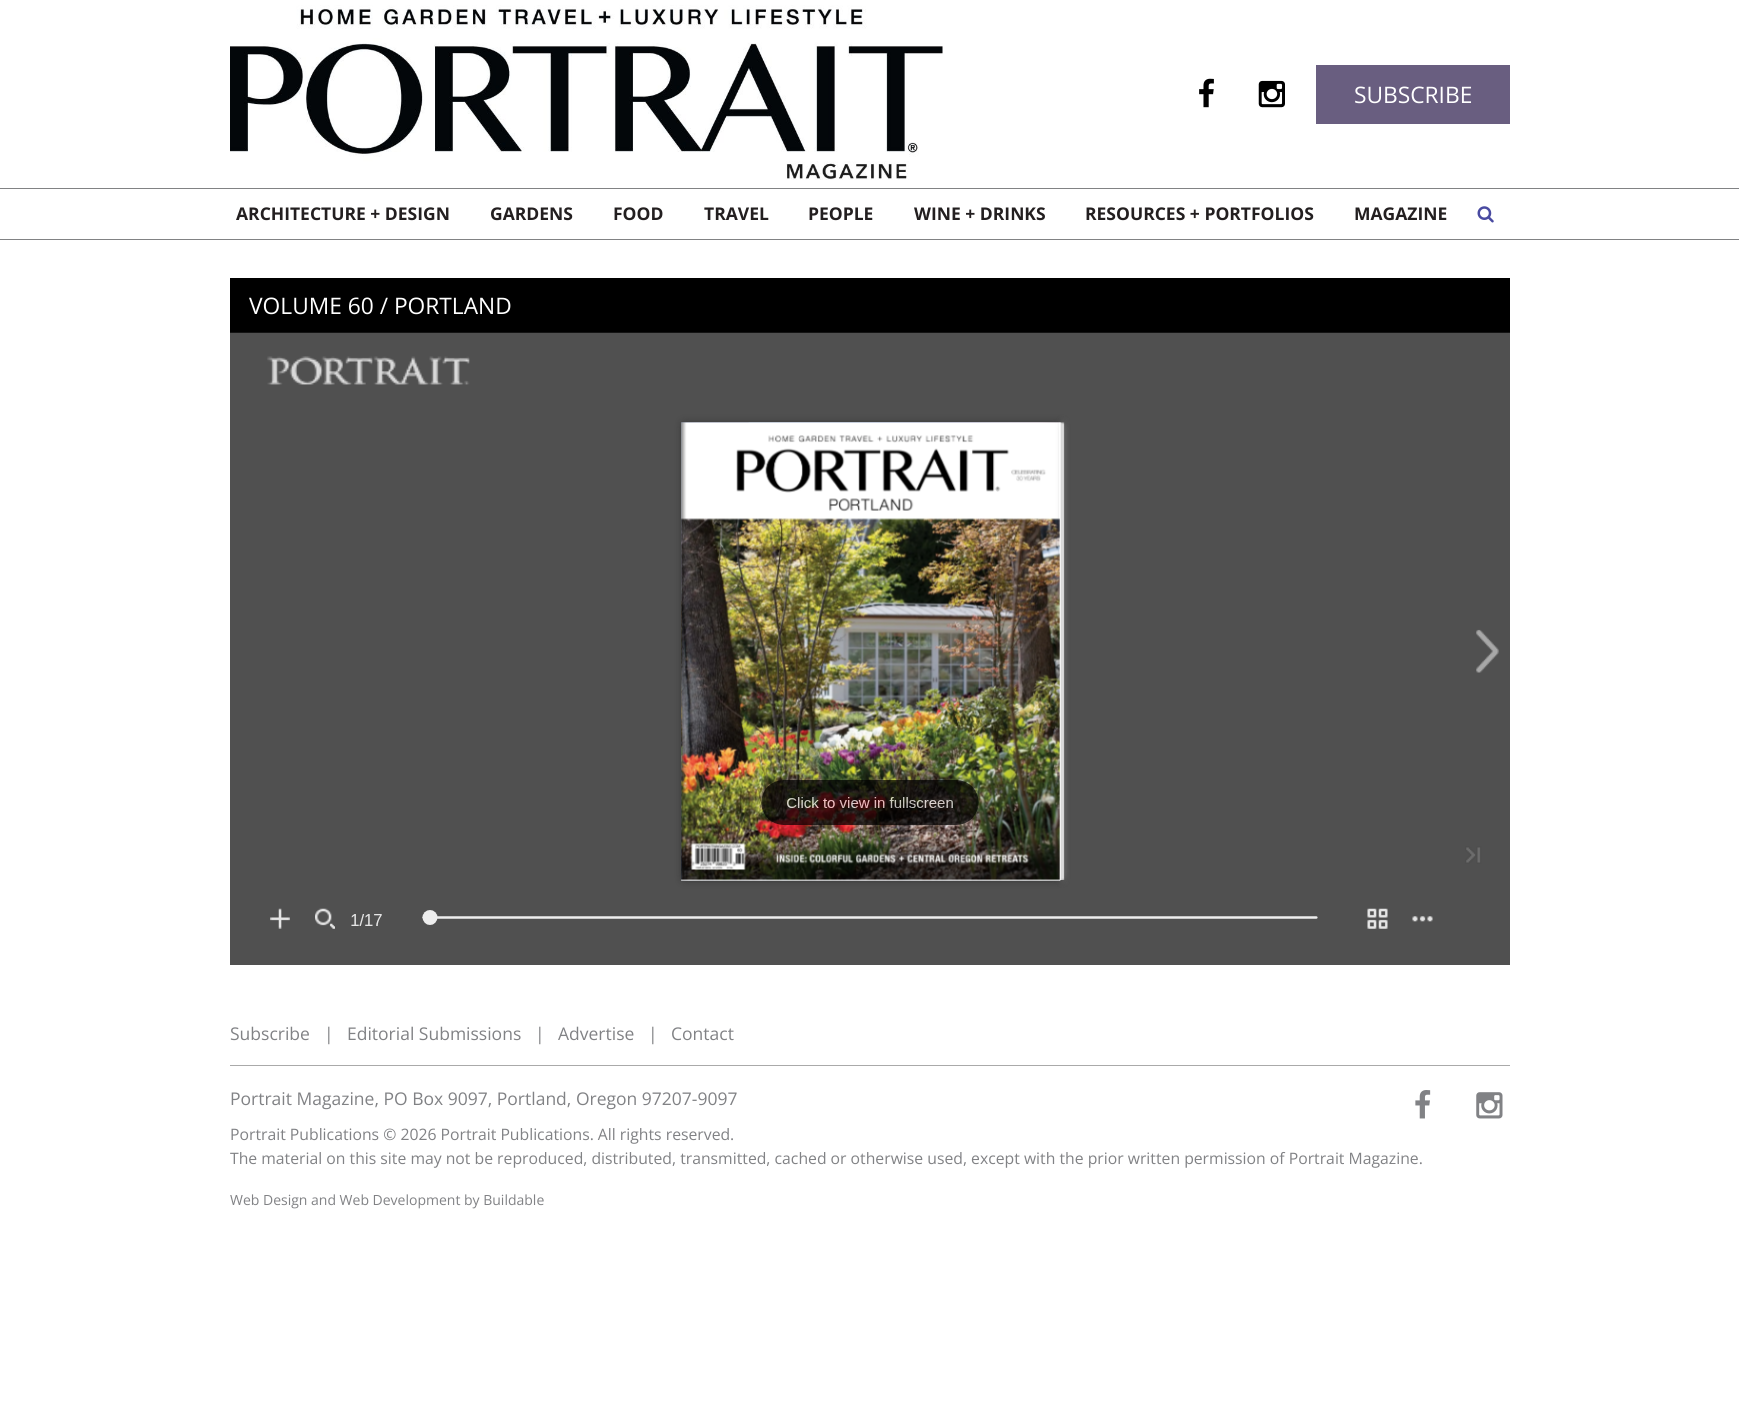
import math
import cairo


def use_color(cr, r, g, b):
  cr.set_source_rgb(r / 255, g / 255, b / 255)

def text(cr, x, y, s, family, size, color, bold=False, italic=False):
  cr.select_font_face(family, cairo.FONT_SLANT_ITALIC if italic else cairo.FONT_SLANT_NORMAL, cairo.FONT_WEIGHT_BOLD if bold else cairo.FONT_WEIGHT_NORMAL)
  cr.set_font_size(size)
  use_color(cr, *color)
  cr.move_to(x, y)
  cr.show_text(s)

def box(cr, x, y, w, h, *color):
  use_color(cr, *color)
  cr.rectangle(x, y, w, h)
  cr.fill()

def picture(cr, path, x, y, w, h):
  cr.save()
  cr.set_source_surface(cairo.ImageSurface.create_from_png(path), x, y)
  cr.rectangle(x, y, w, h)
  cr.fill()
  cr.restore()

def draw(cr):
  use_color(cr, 255, 255, 255)
  cr.paint()
  picture(cr, "img_01.png", 230, 5, 713, 175)
  picture(cr, "img_02.png", 1199, 78, 15, 30)
  picture(cr, "img_03.png", 1258, 80, 27, 28)
  box(cr, 1316, 65, 194, 59, 105, 94, 128)
  box(cr, 0, 188, 1739, 1, 129, 130, 132)
  box(cr, 0, 239, 1739, 1, 129, 130, 132)
  picture(cr, "img_04.png", 1477, 206, 17, 17)
  box(cr, 230, 278, 1280, 55, 0, 0, 0)
  picture(cr, "img_05.png", 230, 332, 1280, 633)
  box(cr, 230, 1065, 1280, 1, 170, 170, 170)
  picture(cr, "img_06.png", 1415, 1090, 16, 29)
  picture(cr, "img_07.png", 1476, 1092, 27, 27)
  text(cr, 1354, 103, "SUBSCRIBE", "Open Sans", 22.75, (255, 255, 255))
  text(cr, 236, 220, "ARCHITECTURE + DESIGN", "Open Sans", 17.5, (35, 31, 32), bold=True)
  text(cr, 490, 220, "GARDENS", "Open Sans", 17.5, (35, 31, 32), bold=True)
  text(cr, 613, 220, "FOOD", "Open Sans", 17.5, (35, 31, 32), bold=True)
  text(cr, 704, 220, "TRAVEL", "Open Sans", 17.5, (35, 31, 32), bold=True)
  text(cr, 808, 220, "PEOPLE", "Open Sans", 17.5, (35, 31, 32), bold=True)
  text(cr, 914, 220, "WINE + DRINKS", "Open Sans", 17.5, (35, 31, 32), bold=True)
  text(cr, 1085, 220, "RESOURCES + PORTFOLIOS", "Open Sans", 17.5, (35, 31, 32), bold=True)
  text(cr, 1354, 220, "MAGAZINE", "Open Sans", 17.5, (35, 31, 32), bold=True)
  text(cr, 249, 314, "VOLUME 60 / PORTLAND", "Open Sans", 22.75, (255, 255, 255))
  text(cr, 230, 1040, "Subscribe", "Open Sans", 17.5, (129, 130, 133))
  text(cr, 324, 1040, "|", "Open Sans", 17.5, (129, 130, 133))
  text(cr, 347, 1040, "Editorial Submissions", "Open Sans", 17.5, (129, 130, 133))
  text(cr, 535, 1040, "|", "Open Sans", 17.5, (129, 130, 133))
  text(cr, 558, 1040, "Advertise", "Open Sans", 17.5, (129, 130, 133))
  text(cr, 648, 1040, "|", "Open Sans", 17.5, (129, 130, 133))
  text(cr, 671, 1040, "Contact", "Open Sans", 17.5, (129, 130, 133))
  text(cr, 230, 1105, "Portrait Magazine, PO Box 9097, Portland, Oregon 97207-9097", "Open Sans", 17.5, (129, 130, 133))
  text(cr, 230, 1140, "Portrait Publications © 2026 Portrait Publications. All rights reserved.", "Open Sans", 15.75, (129, 130, 133))
  text(cr, 230, 1164, "The material on this site may not be reproduced, distributed, transmitted, cached or otherwise used, except with the prior written permission of Portrait Magazine.", "Open Sans", 15.75, (129, 130, 133))
  text(cr, 230, 1205, "Web Design and Web Development by Buildable", "Open Sans", 14, (129, 130, 133))


surface = cairo.ImageSurface(cairo.FORMAT_RGB24, 1739, 1401)
cr = cairo.Context(surface)
options = cairo.FontOptions()
options.set_hint_metrics(cairo.HINT_METRICS_OFF)
options.set_hint_style(cairo.HINT_STYLE_NONE)
cr.set_font_options(options)
cr.set_miter_limit(4)
draw(cr)
surface.write_to_png("out.png")
